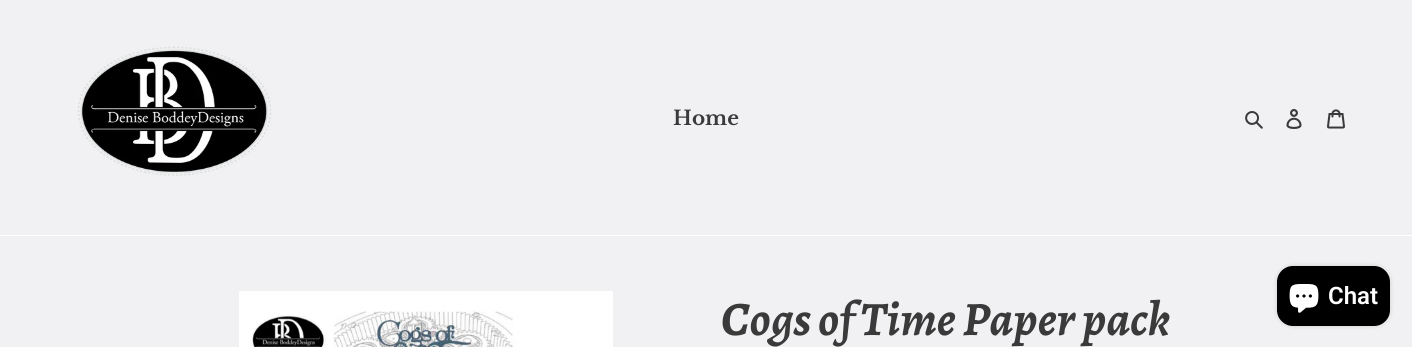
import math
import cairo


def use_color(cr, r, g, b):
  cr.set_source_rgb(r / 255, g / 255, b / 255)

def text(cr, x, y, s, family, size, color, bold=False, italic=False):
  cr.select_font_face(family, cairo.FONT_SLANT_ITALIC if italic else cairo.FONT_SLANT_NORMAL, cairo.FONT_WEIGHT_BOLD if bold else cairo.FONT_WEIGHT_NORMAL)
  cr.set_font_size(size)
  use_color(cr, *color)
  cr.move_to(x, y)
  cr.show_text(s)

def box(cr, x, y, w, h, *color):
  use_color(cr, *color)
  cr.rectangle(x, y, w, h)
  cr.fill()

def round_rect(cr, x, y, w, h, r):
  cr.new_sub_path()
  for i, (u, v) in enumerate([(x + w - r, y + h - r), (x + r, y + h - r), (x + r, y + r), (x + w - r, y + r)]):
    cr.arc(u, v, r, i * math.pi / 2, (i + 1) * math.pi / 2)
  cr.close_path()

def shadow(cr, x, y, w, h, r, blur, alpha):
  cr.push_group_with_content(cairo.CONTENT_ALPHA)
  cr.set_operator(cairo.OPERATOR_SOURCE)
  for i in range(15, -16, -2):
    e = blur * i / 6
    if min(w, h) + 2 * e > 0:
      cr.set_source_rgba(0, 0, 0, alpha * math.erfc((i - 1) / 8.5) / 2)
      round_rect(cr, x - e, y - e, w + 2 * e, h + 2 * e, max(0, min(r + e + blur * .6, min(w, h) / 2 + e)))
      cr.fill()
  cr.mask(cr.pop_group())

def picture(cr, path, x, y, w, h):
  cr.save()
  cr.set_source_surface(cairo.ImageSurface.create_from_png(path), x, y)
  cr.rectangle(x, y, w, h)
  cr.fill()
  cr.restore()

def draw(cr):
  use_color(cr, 241, 241, 244)
  cr.paint()
  box(cr, 0, 235, 1412, 1, 255, 255, 255)
  picture(cr, "img_01.png", 77, 46, 195, 130)
  picture(cr, "img_02.png", 1245, 111, 18, 18)
  picture(cr, "img_03.png", 1286, 109, 16, 20)
  picture(cr, "img_04.png", 1327, 109, 18, 20)
  use_color(cr, 0, 0, 0)
  shadow(cr, 1277, 266, 113, 60, 16, 2.5, 0.15)
  use_color(cr, 0, 0, 0)
  round_rect(cr, 1277, 266, 113, 60, 16)
  cr.fill()
  picture(cr, "img_05.png", 1289, 284, 30, 29)
  picture(cr, "img_06.png", 239, 291, 374, 56)
  text(cr, 673, 125, "Home", "Libre Baskerville", 20, (58, 58, 58), bold=True)
  text(cr, 1328, 304, "Chat", "Roboto SemiBold", 24, (255, 255, 255))
  text(cr, 721, 335, "Cogs of Time Paper pack", "Alegreya", 48, (58, 58, 58), bold=True, italic=True)


surface = cairo.ImageSurface(cairo.FORMAT_RGB24, 1412, 347)
cr = cairo.Context(surface)
options = cairo.FontOptions()
options.set_hint_metrics(cairo.HINT_METRICS_OFF)
options.set_hint_style(cairo.HINT_STYLE_NONE)
cr.set_font_options(options)
cr.set_miter_limit(4)
draw(cr)
surface.write_to_png("out.png")
